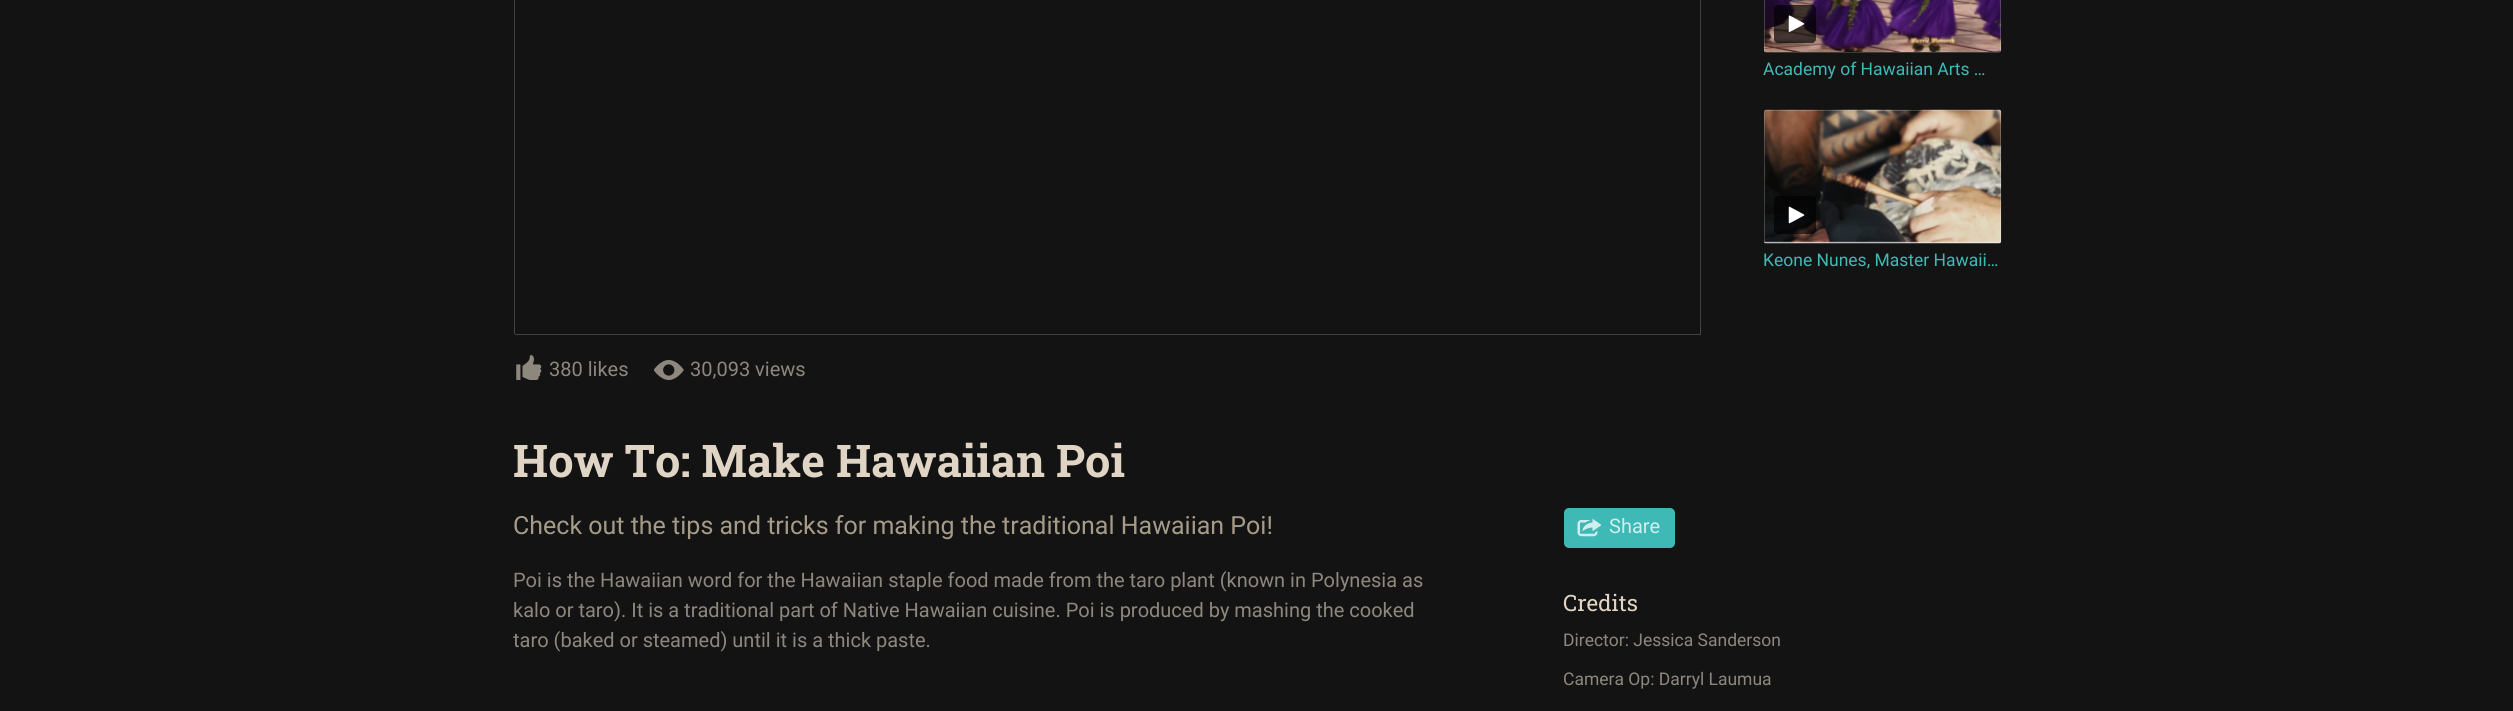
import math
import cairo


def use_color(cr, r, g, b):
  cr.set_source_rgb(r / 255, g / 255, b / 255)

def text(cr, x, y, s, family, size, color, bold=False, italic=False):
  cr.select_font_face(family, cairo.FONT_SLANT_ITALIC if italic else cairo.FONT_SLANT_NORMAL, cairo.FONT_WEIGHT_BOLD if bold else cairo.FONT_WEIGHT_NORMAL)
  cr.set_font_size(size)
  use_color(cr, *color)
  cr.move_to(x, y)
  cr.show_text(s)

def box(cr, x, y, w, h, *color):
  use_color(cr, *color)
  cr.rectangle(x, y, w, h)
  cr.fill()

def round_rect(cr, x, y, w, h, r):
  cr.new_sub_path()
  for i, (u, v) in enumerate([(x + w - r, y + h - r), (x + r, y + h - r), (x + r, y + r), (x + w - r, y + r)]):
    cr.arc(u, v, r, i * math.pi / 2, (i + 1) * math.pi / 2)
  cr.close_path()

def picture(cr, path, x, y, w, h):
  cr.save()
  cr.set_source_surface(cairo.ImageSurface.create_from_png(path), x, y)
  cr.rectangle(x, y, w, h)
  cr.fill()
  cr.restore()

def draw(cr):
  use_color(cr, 19, 19, 19)
  cr.paint()
  use_color(cr, 10, 10, 10)
  round_rect(cr, 1764, -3, 237, 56, 2.5)
  cr.fill()
  picture(cr, "img_01.png", 1763, 0, 239, 52)
  cr.set_source_rgba(0, 0, 0, 0.67)
  round_rect(cr, 1774, 5, 42, 38, 4)
  cr.fill()
  picture(cr, "img_02.png", 1788, 15, 17, 17)
  round_rect(cr, 1764.5, -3.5, 236, 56, 2)
  cr.set_source_rgba(1, 1, 1, 0.2)
  cr.set_line_width(1)
  cr.stroke()
  use_color(cr, 10, 10, 10)
  round_rect(cr, 1764, 110, 237, 134, 2.5)
  cr.fill()
  picture(cr, "img_03.png", 1763, 109, 239, 135)
  cr.set_source_rgba(0, 0, 0, 0.67)
  round_rect(cr, 1774, 196, 42, 38, 4)
  cr.fill()
  picture(cr, "img_04.png", 1788, 206, 17, 18)
  round_rect(cr, 1764.5, 110.5, 236, 133, 2)
  cr.set_source_rgba(1, 1, 1, 0.2)
  cr.stroke()
  box(cr, 515, 334, 3, 1, 66, 66, 66)
  box(cr, 514, 0, 1, 334, 66, 66, 66)
  box(cr, 1700, 0, 1, 334, 66, 66, 66)
  box(cr, 518, 334, 1183, 1, 66, 66, 66)
  picture(cr, "img_05.png", 516, 355, 26, 25)
  picture(cr, "img_06.png", 654, 360, 30, 20)
  use_color(cr, 62, 185, 181)
  round_rect(cr, 1564, 508, 111, 40, 5)
  cr.fill()
  picture(cr, "img_07.png", 1577, 518, 25, 19)
  text(cr, 1763, 75, "Academy of Hawaiian Arts …", "Roboto", 17.5, (62, 185, 181))
  text(cr, 1763, 266, "Keone Nunes, Master Hawaii…", "Roboto", 17.5, (62, 185, 181))
  text(cr, 549, 376, "380 likes", "Roboto", 20, (142, 135, 126))
  text(cr, 690, 376, "30,093 views", "Roboto", 20, (142, 135, 126))
  text(cr, 513, 477, "How To: Make Hawaiian Poi", "Roboto Slab", 45, (224, 213, 196), bold=True)
  text(cr, 513, 534, "Check out the tips and tricks for making the traditional Hawaiian Poi!", "Roboto", 25, (165, 155, 136))
  text(cr, 513, 587, "Poi is the Hawaiian word for the Hawaiian staple food made from the taro plant (known in Polynesia as", "Roboto", 20, (142, 135, 126))
  text(cr, 513, 617, "kalo or taro). It is a traditional part of Native Hawaiian cuisine. Poi is produced by mashing the cooked", "Roboto", 20, (142, 135, 126))
  text(cr, 513, 647, "taro (baked or steamed) until it is a thick paste.", "Roboto", 20, (142, 135, 126))
  text(cr, 1609, 533, "Share", "Roboto", 20, (207, 238, 237))
  text(cr, 1563, 611, "Credits", "Roboto Slab", 22.5, (224, 213, 196))
  text(cr, 1563, 646, "Director: Jessica Sanderson", "Roboto", 17.5, (142, 135, 126))
  text(cr, 1563, 685, "Camera Op: Darryl Laumua", "Roboto", 17.5, (142, 135, 126))


surface = cairo.ImageSurface(cairo.FORMAT_RGB24, 2513, 711)
cr = cairo.Context(surface)
options = cairo.FontOptions()
options.set_hint_metrics(cairo.HINT_METRICS_OFF)
options.set_hint_style(cairo.HINT_STYLE_NONE)
cr.set_font_options(options)
cr.set_miter_limit(4)
draw(cr)
surface.write_to_png("out.png")
